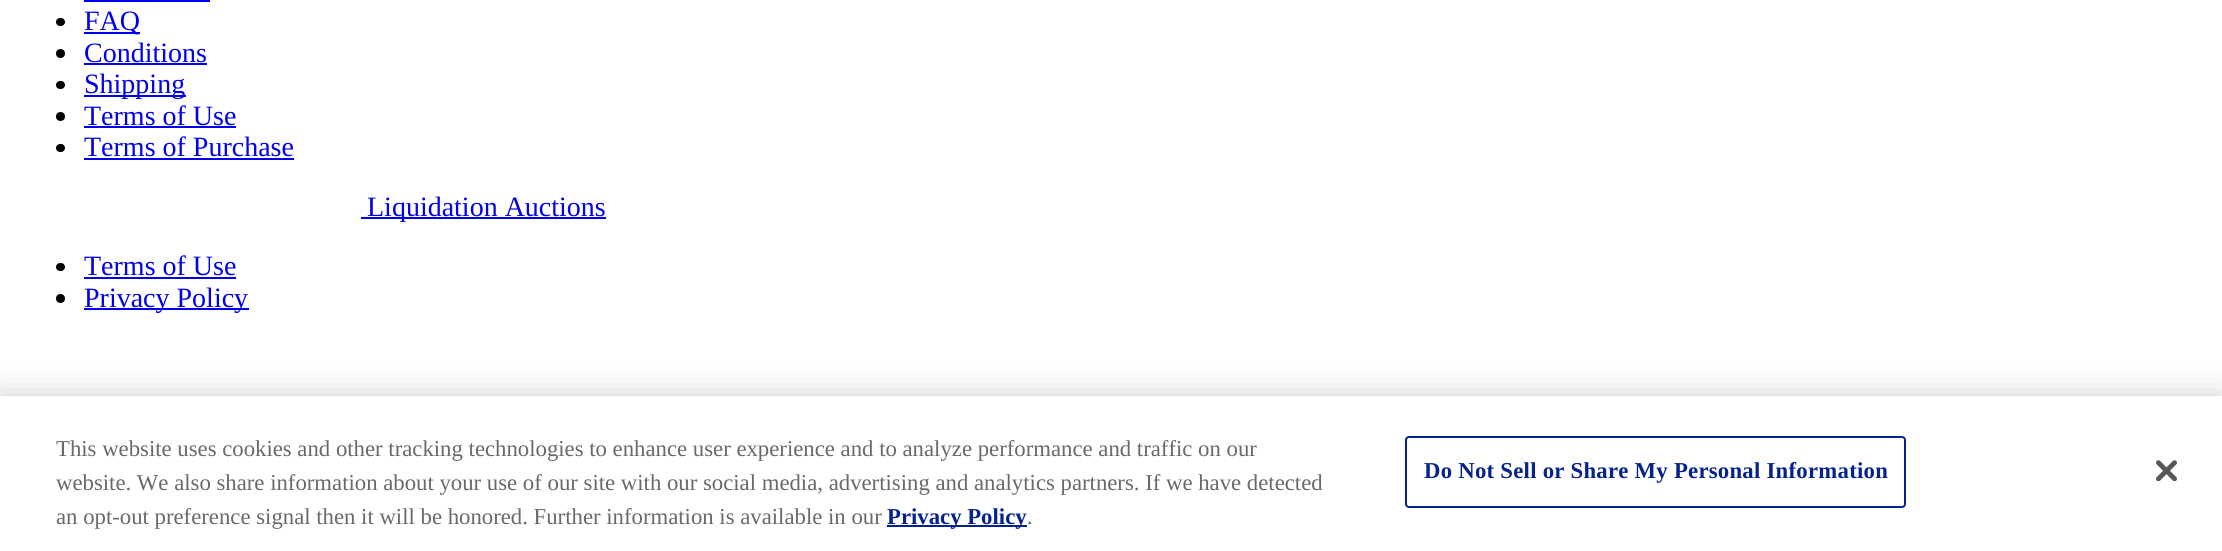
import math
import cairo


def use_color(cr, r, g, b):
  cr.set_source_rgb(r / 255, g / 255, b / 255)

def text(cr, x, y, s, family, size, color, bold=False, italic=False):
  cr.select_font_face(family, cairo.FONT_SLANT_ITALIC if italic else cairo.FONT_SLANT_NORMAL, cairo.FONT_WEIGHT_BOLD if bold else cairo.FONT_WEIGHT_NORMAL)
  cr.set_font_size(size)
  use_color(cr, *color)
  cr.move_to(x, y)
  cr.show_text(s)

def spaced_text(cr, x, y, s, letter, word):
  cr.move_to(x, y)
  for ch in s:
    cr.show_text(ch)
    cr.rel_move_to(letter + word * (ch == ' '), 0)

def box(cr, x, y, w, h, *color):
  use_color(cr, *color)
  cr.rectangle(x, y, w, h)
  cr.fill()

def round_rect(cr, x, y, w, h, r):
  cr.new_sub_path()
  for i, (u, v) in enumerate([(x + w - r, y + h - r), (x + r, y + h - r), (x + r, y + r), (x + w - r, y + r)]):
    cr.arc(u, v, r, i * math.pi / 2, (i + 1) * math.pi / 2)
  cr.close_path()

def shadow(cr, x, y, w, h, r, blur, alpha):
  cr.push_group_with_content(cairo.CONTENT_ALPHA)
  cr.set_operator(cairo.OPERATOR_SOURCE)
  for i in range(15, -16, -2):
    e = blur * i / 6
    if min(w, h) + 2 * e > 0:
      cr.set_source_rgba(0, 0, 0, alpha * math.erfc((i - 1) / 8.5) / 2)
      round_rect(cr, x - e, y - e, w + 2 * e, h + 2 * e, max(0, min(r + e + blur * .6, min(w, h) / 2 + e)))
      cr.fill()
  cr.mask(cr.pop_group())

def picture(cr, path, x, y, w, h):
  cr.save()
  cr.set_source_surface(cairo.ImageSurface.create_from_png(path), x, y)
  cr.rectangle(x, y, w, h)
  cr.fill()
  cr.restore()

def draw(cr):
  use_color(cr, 255, 255, 255)
  cr.paint()
  box(cr, 84, 0, 126, 2, 0, 0, 238)
  use_color(cr, 0, 0, 0)
  round_rect(cr, 56, 18, 9, 8, 4)
  cr.fill()
  box(cr, 84, 32, 56, 2, 0, 0, 238)
  use_color(cr, 0, 0, 0)
  cr.arc(60.5, 53.5, 4.5, 0, 2 * math.pi)
  cr.fill()
  box(cr, 84, 63, 123, 2, 0, 0, 238)
  use_color(cr, 0, 0, 0)
  round_rect(cr, 56, 81, 9, 8, 4)
  cr.fill()
  box(cr, 84, 95, 102, 2, 0, 0, 238)
  use_color(cr, 0, 0, 0)
  cr.arc(60.5, 116.5, 4.5, 0, 2 * math.pi)
  cr.fill()
  box(cr, 84, 126, 152, 2, 0, 0, 238)
  use_color(cr, 0, 0, 0)
  round_rect(cr, 56, 144, 9, 8, 4)
  cr.fill()
  box(cr, 84, 158, 210, 2, 0, 0, 238)
  box(cr, 361, 217, 245, 2, 0, 0, 238)
  use_color(cr, 0, 0, 0)
  round_rect(cr, 56, 263, 9, 8, 4)
  cr.fill()
  box(cr, 84, 277, 152, 2, 0, 0, 238)
  use_color(cr, 0, 0, 0)
  cr.arc(60.5, 298.5, 4.5, 0, 2 * math.pi)
  cr.fill()
  box(cr, 84, 308, 165, 2, 0, 0, 238)
  use_color(cr, 0, 0, 0)
  shadow(cr, 0, 396, 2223, 155, 0, 16, 0.2)
  box(cr, 0, 396, 2222, 155, 255, 255, 255)
  box(cr, 887, 525, 140, 2, 6, 35, 139)
  round_rect(cr, 1406, 437, 499, 70, 3)
  cr.stroke()
  picture(cr, "img_01.png", 2156, 460, 21, 21)
  text(cr, 84, 30, "FAQ", "Liberation Serif", 28, (0, 0, 238))
  text(cr, 84, 62, "Conditions", "Liberation Serif", 28, (0, 0, 238))
  text(cr, 84, 93, "Shipping", "Liberation Serif", 28, (0, 0, 238))
  text(cr, 84, 125, "Terms of Use", "Liberation Serif", 28, (0, 0, 238))
  text(cr, 84, 156, "Terms of Purchase", "Liberation Serif", 28, (0, 0, 238))
  text(cr, 367, 216, "Liquidation Auctions", "Liberation Serif", 28, (0, 0, 238))
  text(cr, 84, 275, "Terms of Use", "Liberation Serif", 28, (0, 0, 238))
  text(cr, 84, 307, "Privacy Policy", "Liberation Serif", 28, (0, 0, 238))
  text(cr, 56, 456, "This website uses cookies and other tracking technologies to enhance user experience and to analyze performance and traffic on our", "Liberation Serif", 22.75, (105, 105, 105))
  text(cr, 56, 490, "website. We also share information about your use of our site with our social media, advertising and analytics partners. If we have detected", "Liberation Serif", 22.75, (105, 105, 105))
  text(cr, 56, 524, "an opt-out preference signal then it will be honored. Further information is available in our", "Liberation Serif", 22.75, (105, 105, 105))
  text(cr, 887, 524, "Privacy Policy", "Liberation Serif", 22.75, (6, 35, 139), bold=True)
  text(cr, 1027, 524, ".", "Liberation Serif", 22.75, (105, 105, 105))
  cr.select_font_face("Liberation Serif", cairo.FONT_SLANT_NORMAL, cairo.FONT_WEIGHT_BOLD)
  use_color(cr, 6, 35, 139)
  spaced_text(cr, 1424, 478, "Do Not Sell or Share My Personal Information", 0.25, 0)


surface = cairo.ImageSurface(cairo.FORMAT_RGB24, 2222, 551)
cr = cairo.Context(surface)
options = cairo.FontOptions()
options.set_hint_metrics(cairo.HINT_METRICS_OFF)
options.set_hint_style(cairo.HINT_STYLE_NONE)
cr.set_font_options(options)
cr.set_miter_limit(4)
draw(cr)
surface.write_to_png("out.png")
